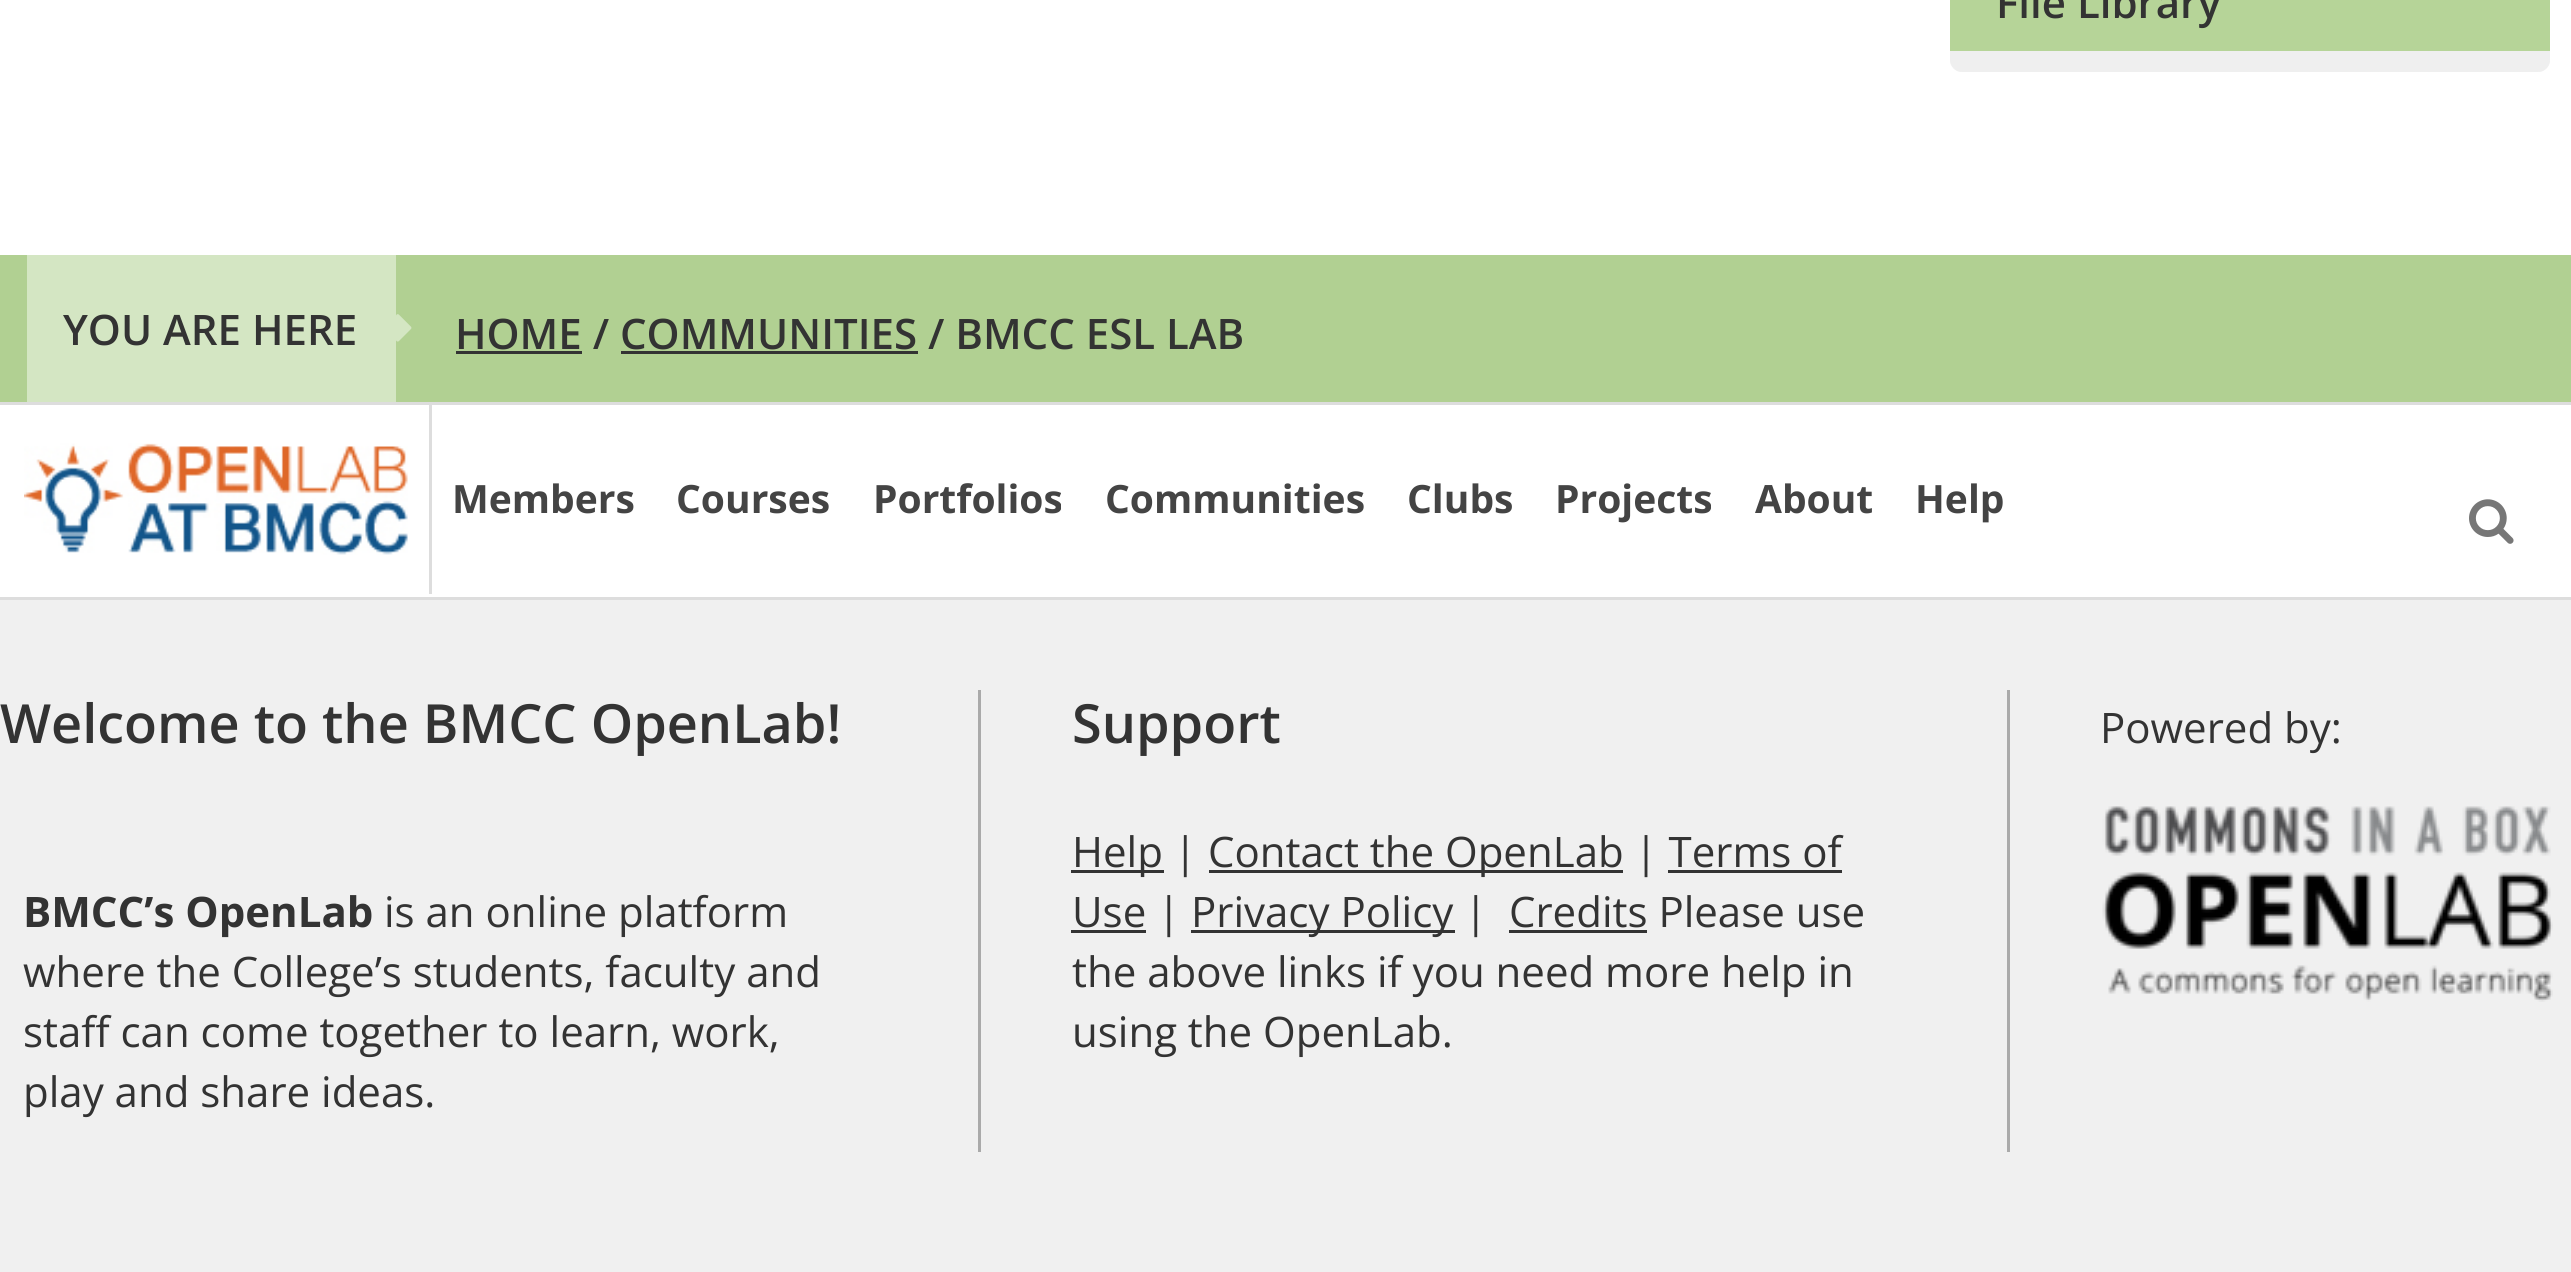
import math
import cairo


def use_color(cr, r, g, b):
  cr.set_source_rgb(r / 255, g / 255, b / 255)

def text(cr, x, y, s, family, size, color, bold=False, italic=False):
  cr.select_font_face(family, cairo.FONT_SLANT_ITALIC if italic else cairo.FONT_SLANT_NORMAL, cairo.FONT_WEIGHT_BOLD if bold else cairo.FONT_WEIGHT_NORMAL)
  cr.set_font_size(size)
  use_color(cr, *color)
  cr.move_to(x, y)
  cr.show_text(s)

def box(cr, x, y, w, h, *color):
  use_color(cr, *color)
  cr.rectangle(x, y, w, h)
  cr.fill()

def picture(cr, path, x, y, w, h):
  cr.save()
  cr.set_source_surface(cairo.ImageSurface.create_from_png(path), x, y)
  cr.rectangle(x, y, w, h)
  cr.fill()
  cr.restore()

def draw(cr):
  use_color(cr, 255, 255, 255)
  cr.paint()
  use_color(cr, 240, 240, 240)
  cr.new_path()
  cr.move_to(1950, -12)
  cr.line_to(2550, -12)
  cr.line_to(2550, 60)
  cr.curve_to(2550, 66.5, 2544.5, 72, 2538, 72)
  cr.line_to(1962, 72)
  cr.curve_to(1955.5, 72, 1950, 66.5, 1950, 60)
  cr.close_path()
  cr.fill()
  cr.set_source_rgba(0.937, 0.937, 0.937, 0.8)
  cr.new_path()
  cr.move_to(1950, -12)
  cr.line_to(2550, -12)
  cr.line_to(2550, 60)
  cr.curve_to(2550, 66.5, 2544.5, 72, 2538, 72)
  cr.line_to(1962, 72)
  cr.curve_to(1955.5, 72, 1950, 66.5, 1950, 60)
  cr.close_path()
  cr.fill()
  box(cr, 1950, 0, 600, 51, 182, 212, 152)
  box(cr, 0, 255, 2571, 147, 177, 208, 146)
  box(cr, 27, 255, 369, 147, 212, 230, 195)
  picture(cr, "img_01.png", 396, 314, 16, 28)
  box(cr, 456, 351, 126, 3, 51, 51, 51)
  box(cr, 621, 351, 297, 3, 51, 51, 51)
  box(cr, 0, 402, 2571, 3, 221, 221, 221)
  box(cr, 0, 597, 2571, 3, 221, 221, 221)
  box(cr, 429, 405, 3, 189, 221, 221, 221)
  picture(cr, "img_02.png", 24, 443, 384, 112)
  picture(cr, "img_03.png", 2469, 499, 45, 45)
  box(cr, 0, 600, 2571, 672, 240, 240, 240)
  box(cr, 978, 690, 3, 462, 170, 170, 170)
  box(cr, 2007, 690, 3, 462, 170, 170, 170)
  box(cr, 1071, 870, 93, 3, 51, 51, 51)
  box(cr, 1209, 870, 414, 3, 51, 51, 51)
  box(cr, 1668, 870, 174, 3, 51, 51, 51)
  box(cr, 1071, 930, 75, 3, 51, 51, 51)
  box(cr, 1191, 930, 264, 3, 51, 51, 51)
  box(cr, 1509, 930, 138, 3, 51, 51, 51)
  picture(cr, "img_04.png", 2102, 806, 451, 196)
  text(cr, 1996, 18, "File Library", "Open Sans SemiBold", 42, (51, 51, 51))
  text(cr, 63, 345, "YOU ARE HERE", "Open Sans SemiBold", 42, (51, 51, 51))
  text(cr, 455, 349, "HOME / COMMUNITIES / BMCC ESL LAB", "Open Sans SemiBold", 42, (51, 51, 51))
  text(cr, 452, 513, "Members", "Open Sans", 39, (68, 68, 68), bold=True)
  text(cr, 676, 513, "Courses", "Open Sans", 39, (68, 68, 68), bold=True)
  text(cr, 873, 513, "Portfolios", "Open Sans", 39, (68, 68, 68), bold=True)
  text(cr, 1105, 513, "Communities", "Open Sans", 39, (68, 68, 68), bold=True)
  text(cr, 1407, 513, "Clubs", "Open Sans", 39, (68, 68, 68), bold=True)
  text(cr, 1555, 513, "Projects", "Open Sans", 39, (68, 68, 68), bold=True)
  text(cr, 1755, 513, "About", "Open Sans", 39, (68, 68, 68), bold=True)
  text(cr, 1915, 513, "Help", "Open Sans", 39, (68, 68, 68), bold=True)
  text(cr, 0, 743, "Welcome to the BMCC OpenLab!", "Open Sans SemiBold", 54, (51, 51, 51))
  text(cr, 23, 927, "BMCC’s OpenLab", "Open Sans", 42, (51, 51, 51), bold=True)
  text(cr, 384, 927, "is an online platform", "Open Sans", 42, (51, 51, 51))
  text(cr, 23, 987, "where the College’s students, faculty and", "Open Sans", 42, (51, 51, 51))
  text(cr, 23, 1047, "staff can come together to learn, work,", "Open Sans", 42, (51, 51, 51))
  text(cr, 23, 1107, "play and share ideas.", "Open Sans", 42, (51, 51, 51))
  text(cr, 1072, 743, "Support", "Open Sans SemiBold", 54, (51, 51, 51))
  text(cr, 1072, 867, "Help |", "Open Sans", 42, (51, 51, 51))
  text(cr, 1208, 867, "Contact the OpenLab | Terms of", "Open Sans", 42, (51, 51, 51))
  text(cr, 1072, 927, "Use |", "Open Sans", 42, (51, 51, 51))
  text(cr, 1191, 927, "Privacy Policy |", "Open Sans", 42, (51, 51, 51))
  text(cr, 1509, 927, "Credits Please use", "Open Sans", 42, (51, 51, 51))
  text(cr, 1072, 987, "the above links if you need more help in", "Open Sans", 42, (51, 51, 51))
  text(cr, 1072, 1047, "using the OpenLab.", "Open Sans", 42, (51, 51, 51))
  text(cr, 2100, 743, "Powered by:", "Open Sans", 42, (51, 51, 51))


surface = cairo.ImageSurface(cairo.FORMAT_RGB24, 2571, 1272)
cr = cairo.Context(surface)
options = cairo.FontOptions()
options.set_hint_metrics(cairo.HINT_METRICS_OFF)
options.set_hint_style(cairo.HINT_STYLE_NONE)
cr.set_font_options(options)
cr.set_miter_limit(4)
draw(cr)
surface.write_to_png("out.png")
